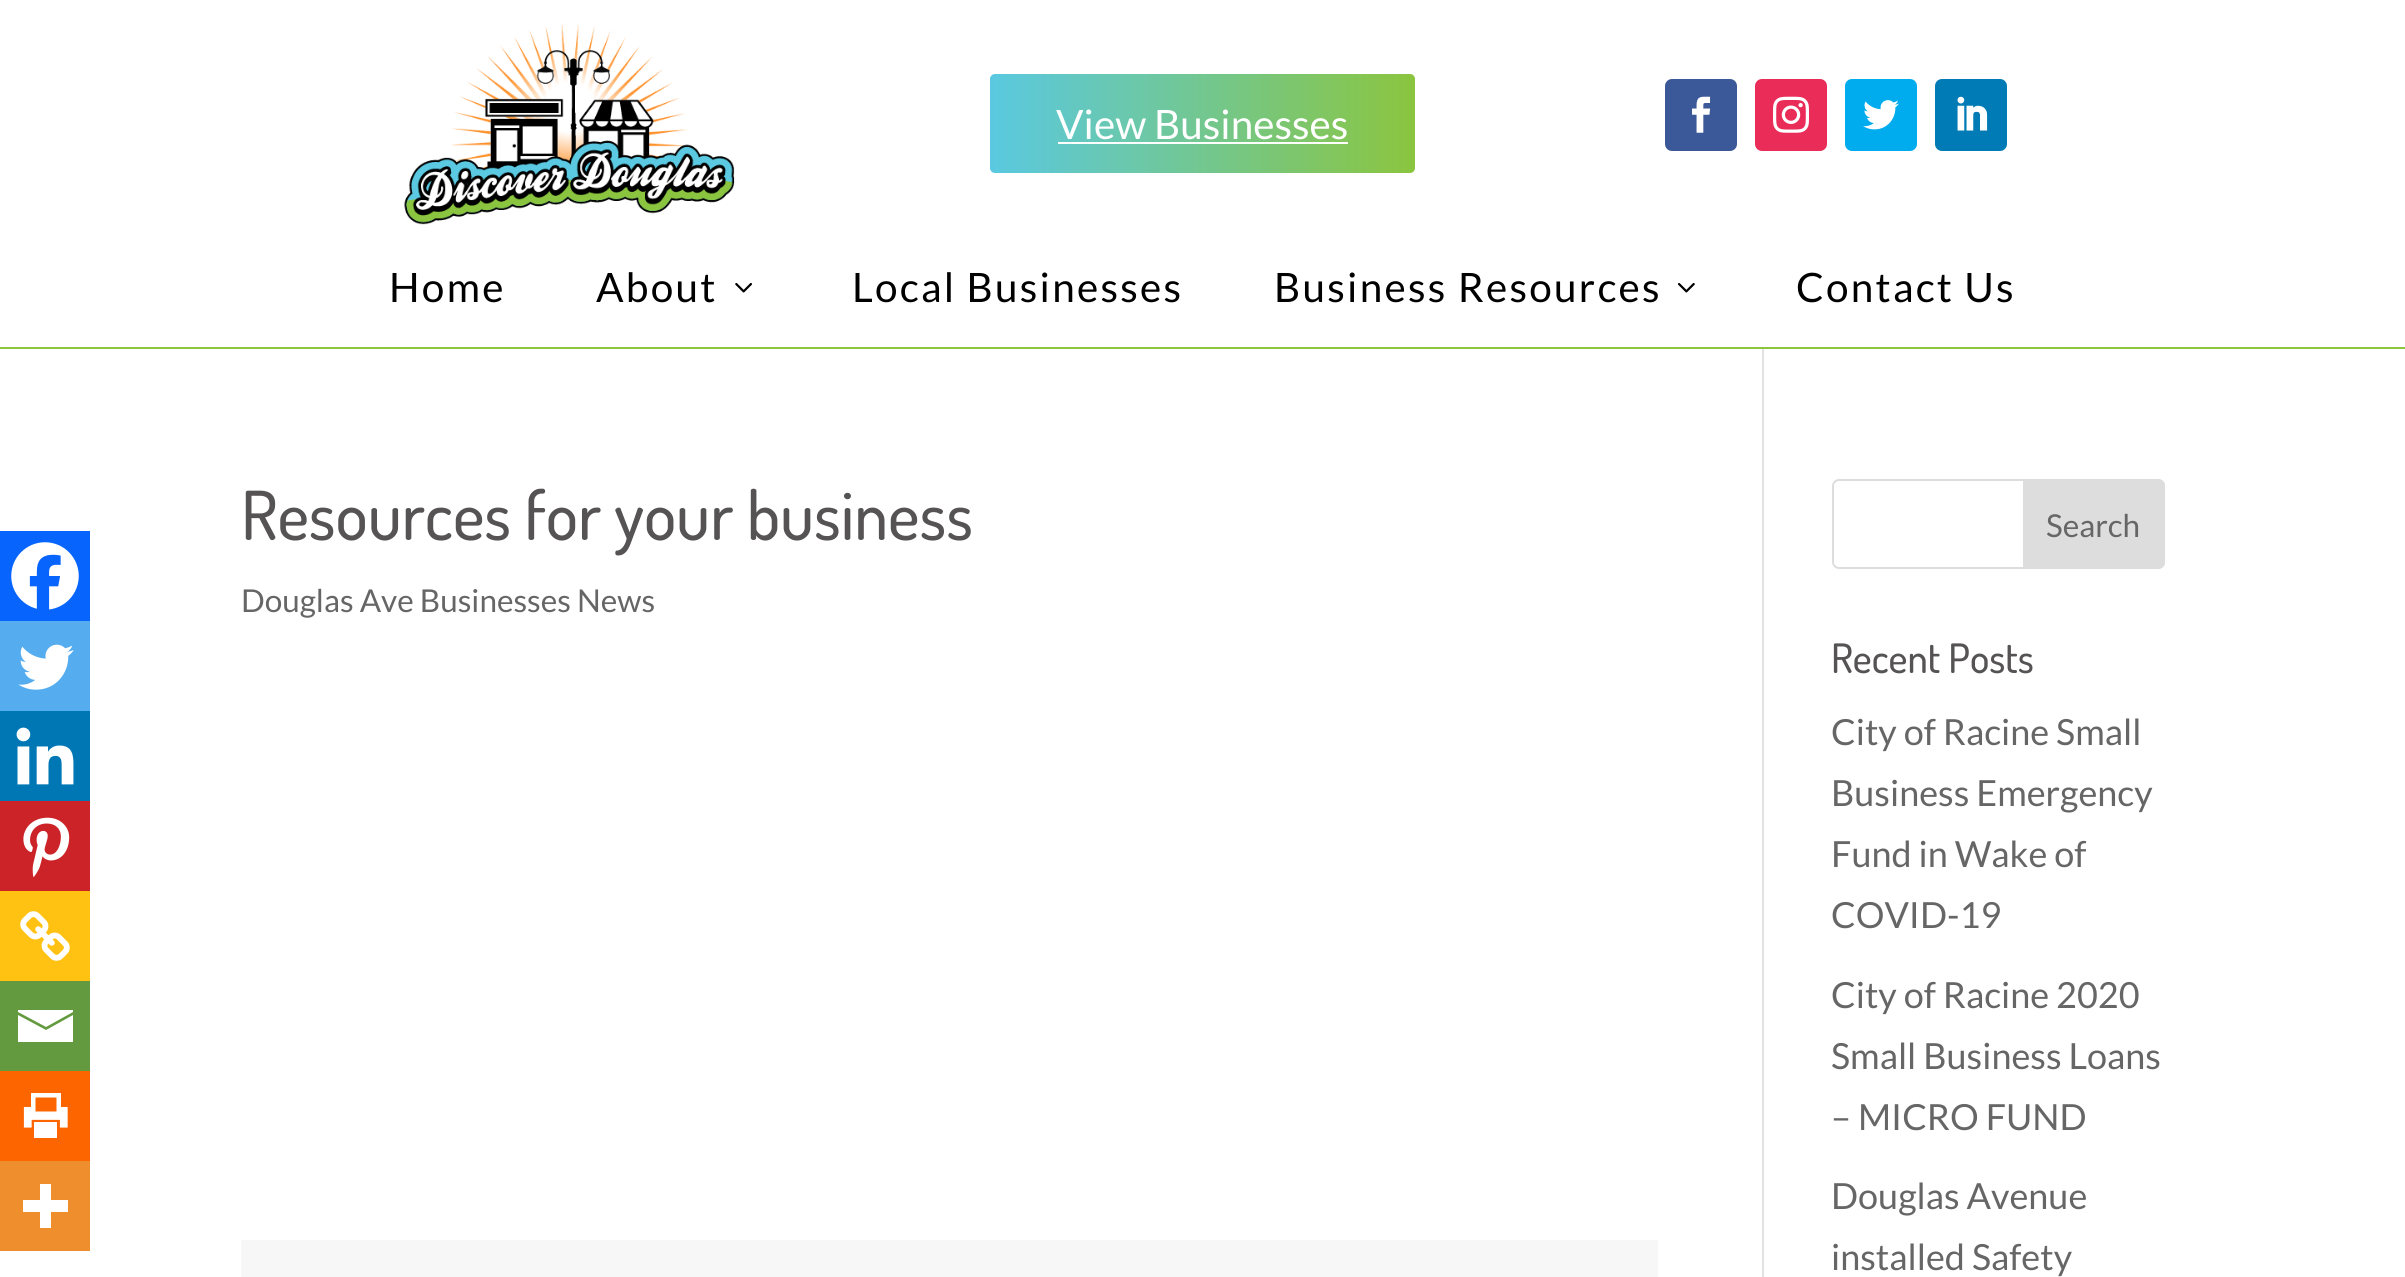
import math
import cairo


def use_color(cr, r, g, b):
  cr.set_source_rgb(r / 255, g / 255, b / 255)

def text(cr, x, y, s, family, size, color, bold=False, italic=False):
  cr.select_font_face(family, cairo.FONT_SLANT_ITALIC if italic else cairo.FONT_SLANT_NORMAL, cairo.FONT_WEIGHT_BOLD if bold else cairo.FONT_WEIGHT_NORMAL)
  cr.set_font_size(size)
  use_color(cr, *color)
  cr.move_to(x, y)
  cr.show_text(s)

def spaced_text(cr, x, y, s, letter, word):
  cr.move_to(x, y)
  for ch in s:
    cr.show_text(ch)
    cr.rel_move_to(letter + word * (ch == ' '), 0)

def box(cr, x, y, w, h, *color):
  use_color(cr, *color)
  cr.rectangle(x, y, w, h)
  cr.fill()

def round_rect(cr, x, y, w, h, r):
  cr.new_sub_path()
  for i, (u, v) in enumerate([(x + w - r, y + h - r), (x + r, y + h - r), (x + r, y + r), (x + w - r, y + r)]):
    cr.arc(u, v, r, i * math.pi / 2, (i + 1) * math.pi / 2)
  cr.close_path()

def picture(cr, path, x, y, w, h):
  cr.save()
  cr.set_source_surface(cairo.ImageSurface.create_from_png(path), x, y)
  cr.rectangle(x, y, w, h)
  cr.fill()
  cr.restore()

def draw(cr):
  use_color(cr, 255, 255, 255)
  cr.paint()
  picture(cr, "img_01.png", 404, 24, 331, 201)
  gradient = cairo.LinearGradient(990, 124, 1415, 124)
  gradient.add_color_stop_rgba(0, 0.353, 0.788, 0.882, 1)
  gradient.add_color_stop_rgba(1, 0.545, 0.773, 0.247, 1)
  cr.set_source(gradient)
  round_rect(cr, 990, 74, 425, 99, 5)
  cr.fill()
  box(cr, 1058, 142, 290, 2, 255, 255, 255)
  use_color(cr, 59, 89, 152)
  round_rect(cr, 1665, 79, 72, 72, 7)
  cr.fill()
  picture(cr, "img_02.png", 1692, 96, 19, 37)
  use_color(cr, 234, 44, 89)
  round_rect(cr, 1755, 79, 72, 72, 7)
  cr.fill()
  picture(cr, "img_03.png", 1773, 96, 36, 37)
  use_color(cr, 0, 172, 237)
  round_rect(cr, 1845, 79, 72, 72, 7)
  cr.fill()
  picture(cr, "img_04.png", 1863, 100, 36, 30)
  use_color(cr, 0, 123, 182)
  round_rect(cr, 1935, 79, 72, 72, 7)
  cr.fill()
  picture(cr, "img_05.png", 1957, 96, 31, 35)
  box(cr, 0, 347, 2405, 2, 139, 197, 63)
  picture(cr, "img_06.png", 735, 283, 17, 10)
  picture(cr, "img_07.png", 1678, 283, 17, 10)
  box(cr, 1762, 349, 2, 928, 226, 226, 226)
  box(cr, 0, 531, 90, 90, 7, 101, 254)
  picture(cr, "img_08.png", 11, 542, 68, 68)
  box(cr, 0, 621, 90, 90, 85, 172, 238)
  picture(cr, "img_09.png", 18, 644, 56, 46)
  box(cr, 0, 711, 90, 90, 0, 119, 181)
  picture(cr, "img_10.png", 16, 727, 58, 58)
  box(cr, 0, 801, 90, 90, 204, 35, 41)
  picture(cr, "img_11.png", 23, 817, 47, 60)
  box(cr, 0, 891, 90, 90, 255, 193, 18)
  picture(cr, "img_12.png", 20, 911, 50, 50)
  box(cr, 0, 981, 90, 90, 100, 154, 63)
  use_color(cr, 255, 255, 255)
  cr.new_path()
  cr.move_to(16, 1010)
  cr.line_to(73, 1010)
  cr.line_to(73, 1012)
  cr.line_to(46, 1027)
  cr.line_to(18, 1012)
  cr.line_to(18, 1010)
  cr.move_to(18, 1015)
  cr.line_to(46, 1030)
  cr.line_to(73, 1015)
  cr.line_to(73, 1042)
  cr.line_to(18, 1042)
  cr.line_to(18, 1015)
  cr.fill()
  box(cr, 0, 1071, 90, 90, 253, 101, 0)
  picture(cr, "img_13.png", 23, 1093, 45, 45)
  box(cr, 0, 1161, 90, 90, 238, 142, 45)
  use_color(cr, 255, 255, 255)
  cr.set_fill_rule(cairo.FILL_RULE_EVEN_ODD)
  cr.new_path()
  cr.move_to(51, 1200)
  cr.line_to(51, 1184)
  cr.line_to(40, 1184)
  cr.line_to(40, 1200)
  cr.line_to(23, 1200)
  cr.line_to(23, 1212)
  cr.line_to(40, 1212)
  cr.line_to(40, 1228)
  cr.line_to(51, 1228)
  cr.line_to(51, 1212)
  cr.line_to(68, 1212)
  cr.line_to(68, 1200)
  cr.close_path()
  cr.fill()
  box(cr, 241, 1240, 1417, 37, 247, 247, 247)
  round_rect(cr, 1833, 480, 331, 88, 6)
  use_color(cr, 221, 221, 221)
  cr.stroke()
  cr.new_path()
  cr.move_to(2024, 480)
  cr.line_to(2158, 480)
  cr.curve_to(2161.5, 480, 2164, 482.5, 2164, 486)
  cr.line_to(2164, 562)
  cr.curve_to(2164, 565.5, 2161.5, 568, 2158, 568)
  cr.line_to(2024, 568)
  cr.close_path()
  cr.fill_preserve()
  cr.stroke()
  text(cr, 1056, 139, "View Businesses", "Lato", 40.5, (255, 255, 255))
  use_color(cr, 0, 0, 0)
  spaced_text(cr, 389, 302, "Home", 2.25, 0)
  spaced_text(cr, 596, 302, "About", 2.25, 0)
  spaced_text(cr, 852, 302, "Local Businesses", 2.25, 0)
  spaced_text(cr, 1274, 302, "Business Resources", 2.25, 0)
  spaced_text(cr, 1796, 302, "Contact Us", 2.25, 0)
  text(cr, 241, 540, "Resources for your business", "Dosis Medium", 67.5, (85, 83, 84))
  text(cr, 241, 612, "Douglas Ave Businesses News", "Lato", 31.5, (102, 102, 102))
  text(cr, 2046, 537, "Search", "Lato", 31.5, (102, 102, 102))
  text(cr, 1831, 673, "Recent Posts", "Dosis Medium", 40.5, (85, 83, 84))
  text(cr, 1831, 745, "City of Racine Small", "Lato", 36, (102, 102, 102))
  text(cr, 1831, 806, "Business Emergency", "Lato", 36, (102, 102, 102))
  text(cr, 1831, 867, "Fund in Wake of", "Lato", 36, (102, 102, 102))
  text(cr, 1831, 928, "COVID-19", "Lato", 36, (102, 102, 102))
  text(cr, 1831, 1008, "City of Racine 2020", "Lato", 36, (102, 102, 102))
  text(cr, 1831, 1069, "Small Business Loans", "Lato", 36, (102, 102, 102))
  text(cr, 1831, 1130, "– MICRO FUND", "Lato", 36, (102, 102, 102))
  text(cr, 1831, 1209, "Douglas Avenue", "Lato", 36, (102, 102, 102))
  text(cr, 1831, 1270, "installed Safety", "Lato", 36, (102, 102, 102))


surface = cairo.ImageSurface(cairo.FORMAT_RGB24, 2405, 1277)
cr = cairo.Context(surface)
options = cairo.FontOptions()
options.set_hint_metrics(cairo.HINT_METRICS_OFF)
options.set_hint_style(cairo.HINT_STYLE_NONE)
cr.set_font_options(options)
cr.set_miter_limit(4)
draw(cr)
surface.write_to_png("out.png")
